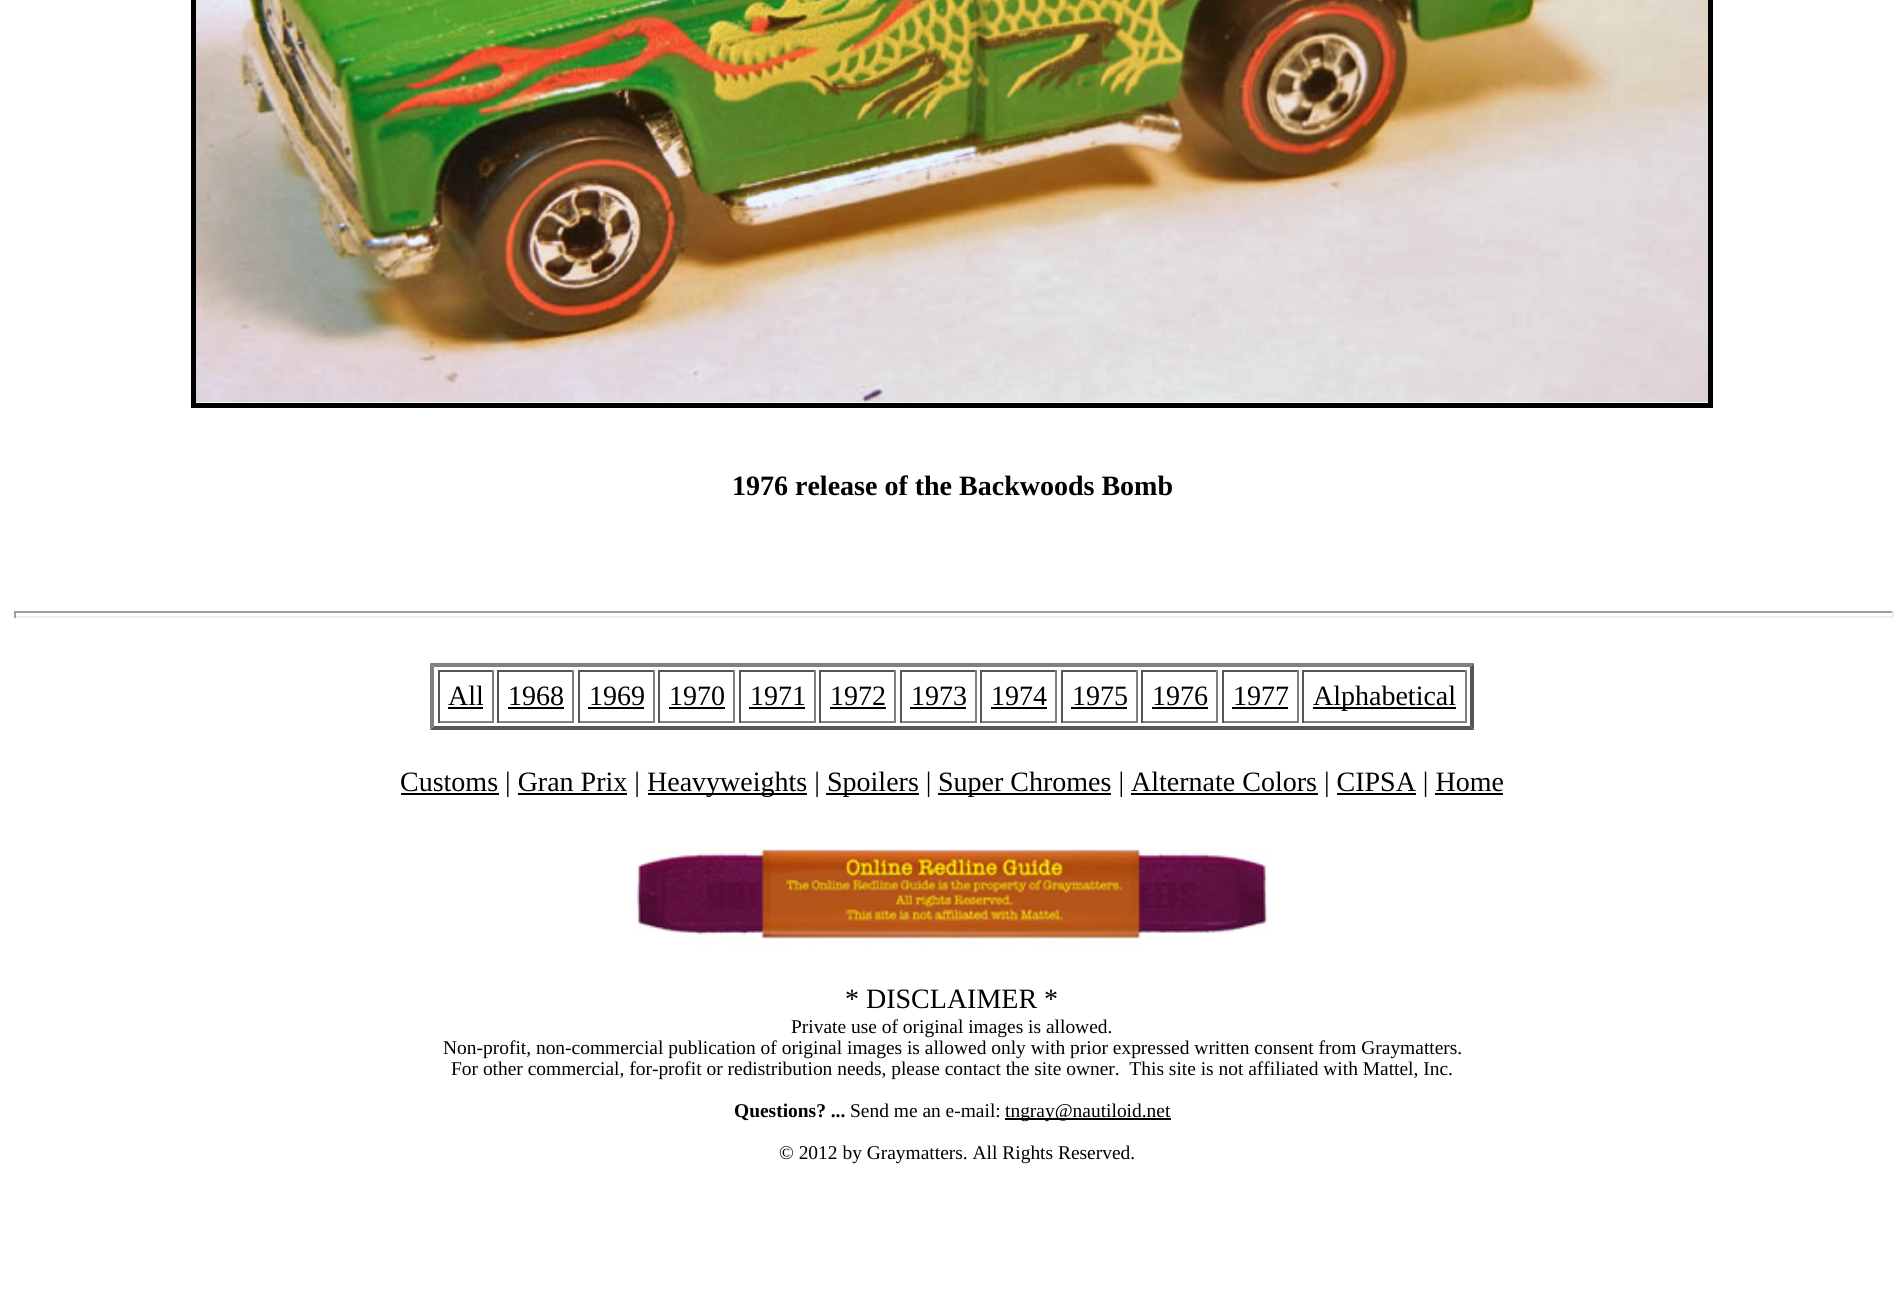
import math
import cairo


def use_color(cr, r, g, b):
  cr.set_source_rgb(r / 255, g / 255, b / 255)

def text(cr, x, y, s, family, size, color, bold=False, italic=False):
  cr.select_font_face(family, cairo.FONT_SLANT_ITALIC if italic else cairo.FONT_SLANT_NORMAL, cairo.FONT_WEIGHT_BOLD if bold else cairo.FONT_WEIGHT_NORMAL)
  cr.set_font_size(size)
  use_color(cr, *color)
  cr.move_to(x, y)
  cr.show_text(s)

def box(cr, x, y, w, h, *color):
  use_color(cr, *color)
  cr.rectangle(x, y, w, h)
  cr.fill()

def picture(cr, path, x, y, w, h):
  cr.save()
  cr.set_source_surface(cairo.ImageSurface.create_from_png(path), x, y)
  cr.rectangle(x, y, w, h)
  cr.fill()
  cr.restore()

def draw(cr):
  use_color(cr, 255, 255, 255)
  cr.paint()
  cr.rectangle(193.5, -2.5, 1517, 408)
  use_color(cr, 0, 0, 0)
  cr.set_line_width(5)
  cr.stroke()
  picture(cr, "img_01.png", 196, 0, 1512, 403)
  box(cr, 14, 611, 1880, 2, 159, 159, 159)
  box(cr, 1892, 611, 2, 7, 238, 238, 238)
  box(cr, 14, 616, 1880, 2, 238, 238, 238)
  box(cr, 14, 611, 2, 7, 159, 159, 159)
  use_color(cr, 128, 128, 128)
  cr.new_path()
  cr.move_to(430, 663)
  cr.line_to(1474, 663)
  cr.line_to(1470, 667)
  cr.line_to(434, 667)
  cr.close_path()
  cr.fill()
  use_color(cr, 85, 85, 85)
  cr.new_path()
  cr.move_to(1474, 663)
  cr.line_to(1474, 730)
  cr.line_to(1470, 726)
  cr.line_to(1470, 667)
  cr.close_path()
  cr.fill()
  cr.new_path()
  cr.move_to(1474, 730)
  cr.line_to(430, 730)
  cr.line_to(434, 726)
  cr.line_to(1470, 726)
  cr.close_path()
  cr.fill()
  use_color(cr, 128, 128, 128)
  cr.new_path()
  cr.move_to(430, 730)
  cr.line_to(430, 663)
  cr.line_to(434, 667)
  cr.line_to(434, 726)
  cr.close_path()
  cr.fill()
  box(cr, 438, 670, 56, 2, 85, 85, 85)
  box(cr, 492, 670, 2, 53, 128, 128, 128)
  box(cr, 438, 721, 56, 2, 128, 128, 128)
  box(cr, 438, 670, 2, 53, 85, 85, 85)
  box(cr, 448, 707, 35, 2, 0, 0, 0)
  box(cr, 497, 670, 77, 2, 85, 85, 85)
  box(cr, 572, 670, 2, 53, 128, 128, 128)
  box(cr, 497, 721, 77, 2, 128, 128, 128)
  box(cr, 497, 670, 2, 53, 85, 85, 85)
  box(cr, 508, 707, 56, 2, 0, 0, 0)
  box(cr, 578, 670, 77, 2, 85, 85, 85)
  box(cr, 653, 670, 2, 53, 128, 128, 128)
  box(cr, 578, 721, 77, 2, 128, 128, 128)
  box(cr, 578, 670, 2, 53, 85, 85, 85)
  box(cr, 588, 707, 56, 2, 0, 0, 0)
  box(cr, 658, 670, 77, 2, 85, 85, 85)
  box(cr, 733, 670, 2, 53, 128, 128, 128)
  box(cr, 658, 721, 77, 2, 128, 128, 128)
  box(cr, 658, 670, 2, 53, 85, 85, 85)
  box(cr, 669, 707, 56, 2, 0, 0, 0)
  box(cr, 739, 670, 77, 2, 85, 85, 85)
  box(cr, 814, 670, 2, 53, 128, 128, 128)
  box(cr, 739, 721, 77, 2, 128, 128, 128)
  box(cr, 739, 670, 2, 53, 85, 85, 85)
  box(cr, 749, 707, 56, 2, 0, 0, 0)
  box(cr, 819, 670, 77, 2, 85, 85, 85)
  box(cr, 894, 670, 2, 53, 128, 128, 128)
  box(cr, 819, 721, 77, 2, 128, 128, 128)
  box(cr, 819, 670, 2, 53, 85, 85, 85)
  box(cr, 830, 707, 56, 2, 0, 0, 0)
  box(cr, 900, 670, 77, 2, 85, 85, 85)
  box(cr, 975, 670, 2, 53, 128, 128, 128)
  box(cr, 900, 721, 77, 2, 128, 128, 128)
  box(cr, 900, 670, 2, 53, 85, 85, 85)
  box(cr, 910, 707, 56, 2, 0, 0, 0)
  box(cr, 980, 670, 77, 2, 85, 85, 85)
  box(cr, 1055, 670, 2, 53, 128, 128, 128)
  box(cr, 980, 721, 77, 2, 128, 128, 128)
  box(cr, 980, 670, 2, 53, 85, 85, 85)
  box(cr, 991, 707, 56, 2, 0, 0, 0)
  box(cr, 1061, 670, 77, 2, 85, 85, 85)
  box(cr, 1136, 670, 2, 53, 128, 128, 128)
  box(cr, 1061, 721, 77, 2, 128, 128, 128)
  box(cr, 1061, 670, 2, 53, 85, 85, 85)
  box(cr, 1071, 707, 56, 2, 0, 0, 0)
  box(cr, 1141, 670, 77, 2, 85, 85, 85)
  box(cr, 1216, 670, 2, 53, 128, 128, 128)
  box(cr, 1141, 721, 77, 2, 128, 128, 128)
  box(cr, 1141, 670, 2, 53, 85, 85, 85)
  box(cr, 1152, 707, 56, 2, 0, 0, 0)
  box(cr, 1222, 670, 77, 2, 85, 85, 85)
  box(cr, 1297, 670, 2, 53, 128, 128, 128)
  box(cr, 1222, 721, 77, 2, 128, 128, 128)
  box(cr, 1222, 670, 2, 53, 85, 85, 85)
  box(cr, 1232, 707, 56, 2, 0, 0, 0)
  box(cr, 1302, 670, 165, 2, 85, 85, 85)
  box(cr, 1465, 670, 2, 53, 128, 128, 128)
  box(cr, 1302, 721, 165, 2, 128, 128, 128)
  box(cr, 1302, 670, 2, 53, 85, 85, 85)
  box(cr, 1313, 707, 143, 2, 0, 0, 0)
  box(cr, 401, 793, 98, 2, 0, 0, 0)
  box(cr, 648, 793, 159, 2, 0, 0, 0)
  box(cr, 826, 793, 93, 2, 0, 0, 0)
  box(cr, 938, 793, 173, 2, 0, 0, 0)
  box(cr, 518, 793, 109, 2, 0, 0, 0)
  box(cr, 1131, 793, 187, 2, 0, 0, 0)
  box(cr, 1337, 793, 79, 2, 0, 0, 0)
  box(cr, 1435, 793, 68, 2, 0, 0, 0)
  picture(cr, "img_02.png", 637, 848, 630, 98)
  box(cr, 1005, 1118, 166, 2, 0, 0, 0)
  text(cr, 732, 495, "1976 release of the Backwoods Bomb", "Liberation Serif", 28, (0, 0, 0), bold=True)
  text(cr, 448, 705, "All", "Liberation Serif", 28, (0, 0, 0))
  text(cr, 508, 705, "1968", "Liberation Serif", 28, (0, 0, 0))
  text(cr, 589, 705, "1969", "Liberation Serif", 28, (0, 0, 0))
  text(cr, 669, 705, "1970", "Liberation Serif", 28, (0, 0, 0))
  text(cr, 750, 705, "1971", "Liberation Serif", 28, (0, 0, 0))
  text(cr, 830, 705, "1972", "Liberation Serif", 28, (0, 0, 0))
  text(cr, 911, 705, "1973", "Liberation Serif", 28, (0, 0, 0))
  text(cr, 991, 705, "1974", "Liberation Serif", 28, (0, 0, 0))
  text(cr, 1072, 705, "1975", "Liberation Serif", 28, (0, 0, 0))
  text(cr, 1152, 705, "1976", "Liberation Serif", 28, (0, 0, 0))
  text(cr, 1233, 705, "1977", "Liberation Serif", 28, (0, 0, 0))
  text(cr, 1313, 705, "Alphabetical", "Liberation Serif", 28, (0, 0, 0))
  text(cr, 400, 791, "Customs | Gran Prix |", "Liberation Serif", 28, (0, 0, 0))
  text(cr, 647, 791, "Heavyweights |", "Liberation Serif", 28, (0, 0, 0))
  text(cr, 827, 791, "Spoilers |", "Liberation Serif", 28, (0, 0, 0))
  text(cr, 938, 791, "Super Chromes | Alternate Colors | CIPSA | Home", "Liberation Serif", 28, (0, 0, 0))
  text(cr, 845, 1008, "* DISCLAIMER *", "Liberation Serif", 28, (0, 0, 0))
  text(cr, 791, 1033, "Private use of original images is allowed.", "Liberation Serif", 19.45, (0, 0, 0))
  text(cr, 443, 1054, "Non-profit, non-commercial publication of original images is allowed only with prior expressed written consent from Graymatters.", "Liberation Serif", 19.45, (0, 0, 0))
  text(cr, 451, 1075, "For other commercial, for-profit or redistribution needs, please contact the site owner.  This site is not affiliated with Mattel, Inc.", "Liberation Serif", 19.45, (0, 0, 0))
  text(cr, 734, 1117, "Questions? ...", "Liberation Serif", 19.45, (0, 0, 0), bold=True)
  text(cr, 850, 1117, "Send me an e-mail:", "Liberation Serif", 19.45, (0, 0, 0))
  text(cr, 1005, 1117, "tngray@nautiloid.net", "Liberation Serif", 19.45, (0, 0, 0))
  text(cr, 779, 1159, "© 2012 by Graymatters. All Rights Reserved.", "Liberation Serif", 19.45, (0, 0, 0))


surface = cairo.ImageSurface(cairo.FORMAT_RGB24, 1903, 1316)
cr = cairo.Context(surface)
options = cairo.FontOptions()
options.set_hint_metrics(cairo.HINT_METRICS_OFF)
options.set_hint_style(cairo.HINT_STYLE_NONE)
cr.set_font_options(options)
cr.set_miter_limit(4)
draw(cr)
surface.write_to_png("out.png")
